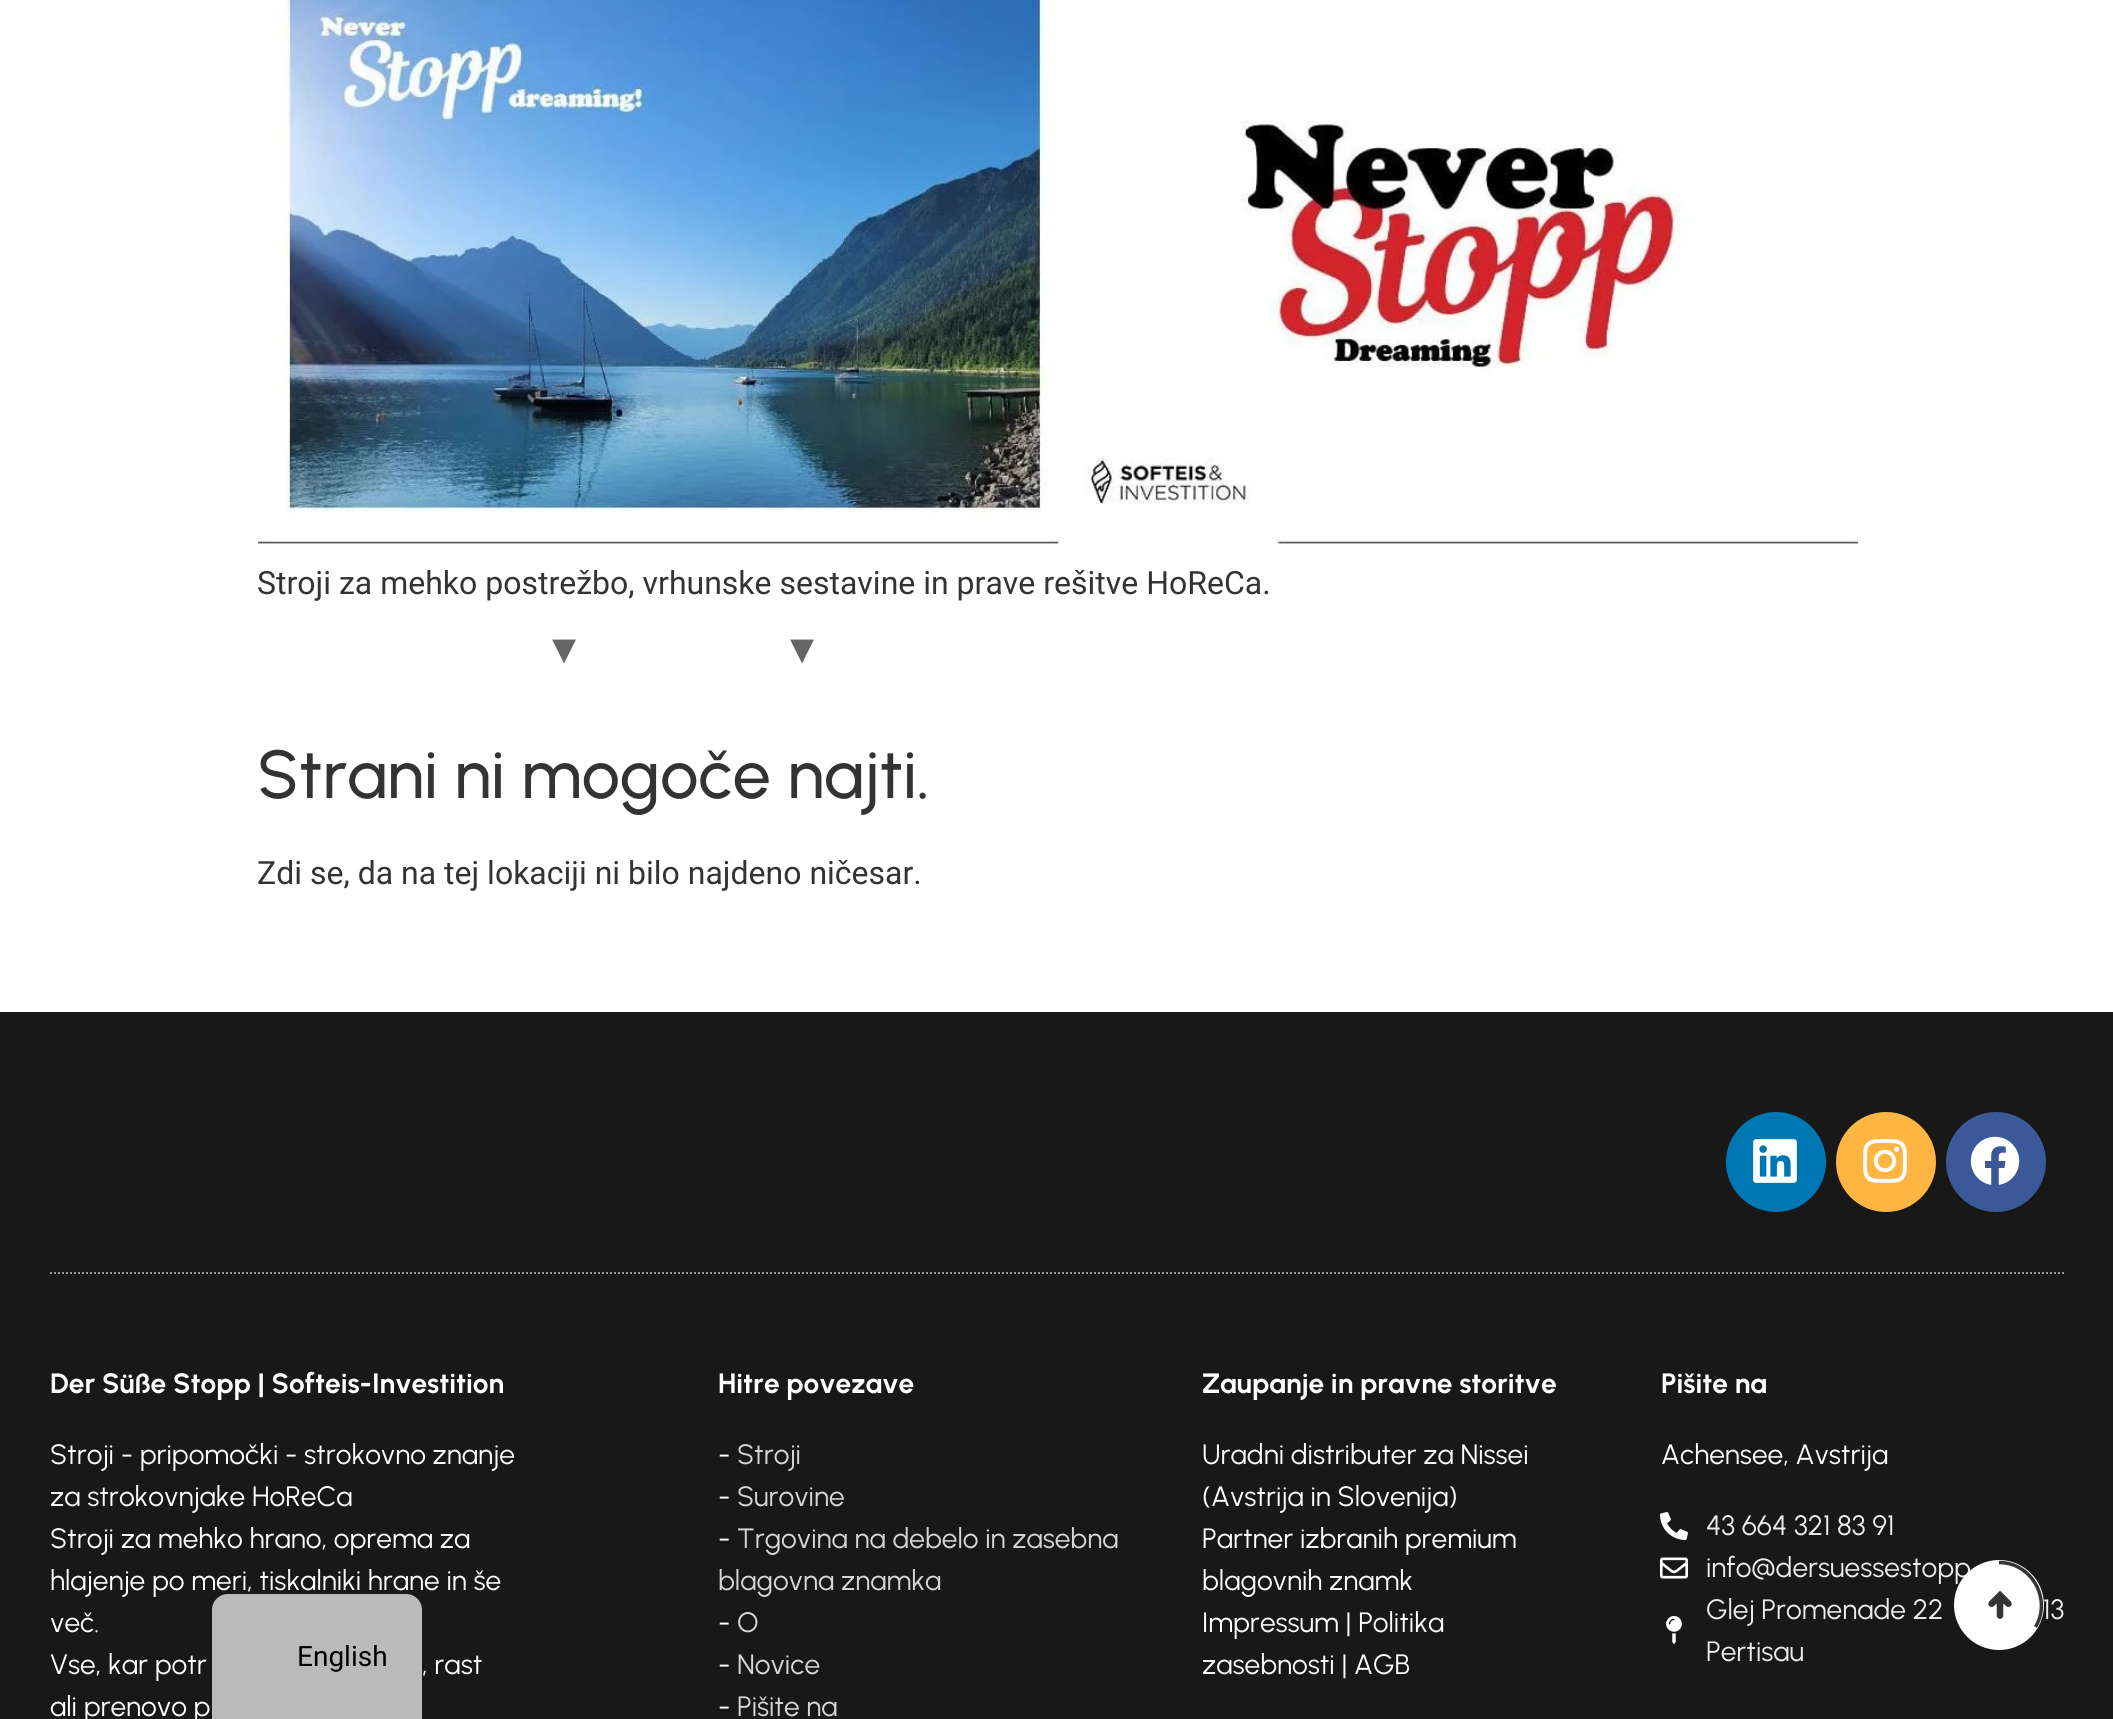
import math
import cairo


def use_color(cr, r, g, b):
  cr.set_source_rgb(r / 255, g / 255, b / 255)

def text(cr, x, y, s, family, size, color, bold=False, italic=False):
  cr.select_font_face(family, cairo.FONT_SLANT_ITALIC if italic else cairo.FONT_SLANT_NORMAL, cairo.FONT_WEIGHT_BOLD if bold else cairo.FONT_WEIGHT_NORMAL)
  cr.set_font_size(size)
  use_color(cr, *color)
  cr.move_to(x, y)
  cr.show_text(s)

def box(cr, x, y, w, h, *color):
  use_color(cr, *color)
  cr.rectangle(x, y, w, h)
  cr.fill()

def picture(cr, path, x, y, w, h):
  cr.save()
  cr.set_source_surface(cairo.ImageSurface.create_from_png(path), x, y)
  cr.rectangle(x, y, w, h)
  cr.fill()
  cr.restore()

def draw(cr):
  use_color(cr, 255, 255, 255)
  cr.paint()
  picture(cr, "img_01.png", 258, 0, 1600, 544)
  box(cr, 0, 1012, 2113, 707, 24, 24, 24)
  cr.new_path()
  cr.move_to(50, 1273)
  cr.line_to(2064, 1273)
  use_color(cr, 155, 155, 155)
  cr.set_dash([2, 2])
  cr.stroke()
  use_color(cr, 0, 119, 181)
  cr.arc(1776, 1162, 50, 0, 2 * math.pi)
  cr.fill()
  picture(cr, "img_02.png", 1753, 1139, 44, 44)
  use_color(cr, 255, 181, 65)
  cr.arc(1886, 1162, 50, 0, 2 * math.pi)
  cr.fill()
  picture(cr, "img_03.png", 1863, 1139, 44, 44)
  use_color(cr, 59, 89, 152)
  cr.arc(1996, 1162, 50, 0, 2 * math.pi)
  cr.fill()
  picture(cr, "img_04.png", 1970, 1136, 50, 49)
  picture(cr, "img_05.png", 1660, 1512, 28, 28)
  picture(cr, "img_06.png", 1660, 1557, 28, 22)
  picture(cr, "img_07.png", 1666, 1616, 16, 28)
  text(cr, 257, 594, "Stroji za mehko postrežbo, vrhunske sestavine in prave rešitve HoReCa.", "Roboto", 32, (51, 51, 51))
  text(cr, 552, 664, "▾", "DejaVu Sans", 48, (102, 102, 102))
  text(cr, 790, 664, "▾", "DejaVu Sans", 48, (102, 102, 102))
  text(cr, 257, 798, "Strani ni mogoče najti.", "Urbanist Medium", 68, (51, 51, 51))
  text(cr, 257, 884, "Zdi se, da na tej lokaciji ni bilo najdeno ničesar.", "Roboto", 32, (51, 51, 51))
  text(cr, 50, 1393, "Der Süße Stopp | Softeis-Investition", "Urbanist", 28, (255, 255, 255), bold=True)
  text(cr, 50, 1464, "Stroji - pripomočki - strokovno znanje", "Urbanist", 28, (255, 255, 255))
  text(cr, 50, 1506, "za strokovnjake HoReCa", "Urbanist", 28, (255, 255, 255))
  text(cr, 50, 1548, "Stroji za mehko hrano, oprema za", "Urbanist", 28, (255, 255, 255))
  text(cr, 50, 1590, "hlajenje po meri, tiskalniki hrane in še", "Urbanist", 28, (255, 255, 255))
  text(cr, 50, 1632, "več.", "Urbanist", 28, (255, 255, 255))
  text(cr, 50, 1674, "Vse, kar potr", "Urbanist", 28, (255, 255, 255))
  text(cr, 422, 1674, ", rast", "Urbanist", 28, (255, 255, 255))
  text(cr, 50, 1716, "ali prenovo p", "Urbanist", 28, (255, 255, 255))
  text(cr, 718, 1393, "Hitre povezave", "Urbanist", 28, (255, 255, 255), bold=True)
  text(cr, 718, 1464, "-", "Urbanist", 28, (255, 255, 255))
  text(cr, 737, 1464, "Stroji", "Urbanist", 28, (214, 214, 214))
  text(cr, 718, 1506, "-", "Urbanist", 28, (255, 255, 255))
  text(cr, 737, 1506, "Surovine", "Urbanist", 28, (214, 214, 214))
  text(cr, 718, 1548, "-", "Urbanist", 28, (255, 255, 255))
  text(cr, 737, 1548, "Trgovina na debelo in zasebna", "Urbanist", 28, (214, 214, 214))
  text(cr, 718, 1590, "blagovna znamka", "Urbanist", 28, (214, 214, 214))
  text(cr, 718, 1632, "-", "Urbanist", 28, (255, 255, 255))
  text(cr, 737, 1632, "O", "Urbanist", 28, (214, 214, 214))
  text(cr, 718, 1674, "-", "Urbanist", 28, (255, 255, 255))
  text(cr, 737, 1674, "Novice", "Urbanist", 28, (214, 214, 214))
  text(cr, 718, 1716, "-", "Urbanist", 28, (255, 255, 255))
  text(cr, 737, 1716, "Pišite na", "Urbanist", 28, (214, 214, 214))
  text(cr, 1202, 1393, "Zaupanje in pravne storitve", "Urbanist", 28, (255, 255, 255), bold=True)
  text(cr, 1202, 1464, "Uradni distributer za Nissei", "Urbanist", 28, (255, 255, 255))
  text(cr, 1202, 1506, "(Avstrija in Slovenija)", "Urbanist", 28, (255, 255, 255))
  text(cr, 1202, 1548, "Partner izbranih premium", "Urbanist", 28, (255, 255, 255))
  text(cr, 1202, 1590, "blagovnih znamk", "Urbanist", 28, (255, 255, 255))
  text(cr, 1202, 1632, "Impressum | Politika", "Urbanist", 28, (255, 255, 255))
  text(cr, 1202, 1674, "zasebnosti | AGB", "Urbanist", 28, (255, 255, 255))
  text(cr, 1661, 1393, "Pišite na", "Urbanist", 28, (255, 255, 255), bold=True)
  text(cr, 1661, 1464, "Achensee, Avstrija", "Urbanist", 28, (255, 255, 255))
  text(cr, 1706, 1535, "43 664 321 83 91", "Urbanist", 28, (235, 235, 235))
  text(cr, 1706, 1577, "info@dersuessestopp", "Urbanist", 28, (235, 235, 235))
  text(cr, 1706, 1619, "Glej Promenade 22", "Urbanist", 28, (235, 235, 235))
  text(cr, 2043, 1619, "13", "Urbanist", 28, (235, 235, 235))
  text(cr, 1706, 1661, "Pertisau", "Urbanist", 28, (235, 235, 235))
  use_color(cr, 255, 255, 255)
  cr.new_path()
  cr.arc(1999, 1605, 43, 0, 2 * math.pi)
  cr.fill_preserve()
  cr.set_line_width(4)
  cr.set_dash([])
  cr.stroke()
  cr.new_path()
  cr.move_to(1999, 1562.5)
  cr.curve_to(2032, 1562.5, 2052, 1599.5, 2035.5, 1627)
  use_color(cr, 53, 53, 53)
  cr.set_line_width(3.5)
  cr.stroke()
  picture(cr, "img_08.png", 1988, 1590, 24, 29)
  cr.set_source_rgba(1, 1, 1, 0.7)
  cr.new_path()
  cr.move_to(228, 1594)
  cr.line_to(406, 1594)
  cr.curve_to(415, 1594, 422, 1601, 422, 1610)
  cr.line_to(422, 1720)
  cr.line_to(212, 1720)
  cr.line_to(212, 1610)
  cr.curve_to(212, 1601, 219, 1594, 228, 1594)
  cr.close_path()
  cr.fill()
  text(cr, 297, 1666, "English", "Roboto", 28, (0, 0, 0))


surface = cairo.ImageSurface(cairo.FORMAT_RGB24, 2113, 1719)
cr = cairo.Context(surface)
options = cairo.FontOptions()
options.set_hint_metrics(cairo.HINT_METRICS_OFF)
options.set_hint_style(cairo.HINT_STYLE_NONE)
cr.set_font_options(options)
cr.set_miter_limit(4)
draw(cr)
surface.write_to_png("out.png")
